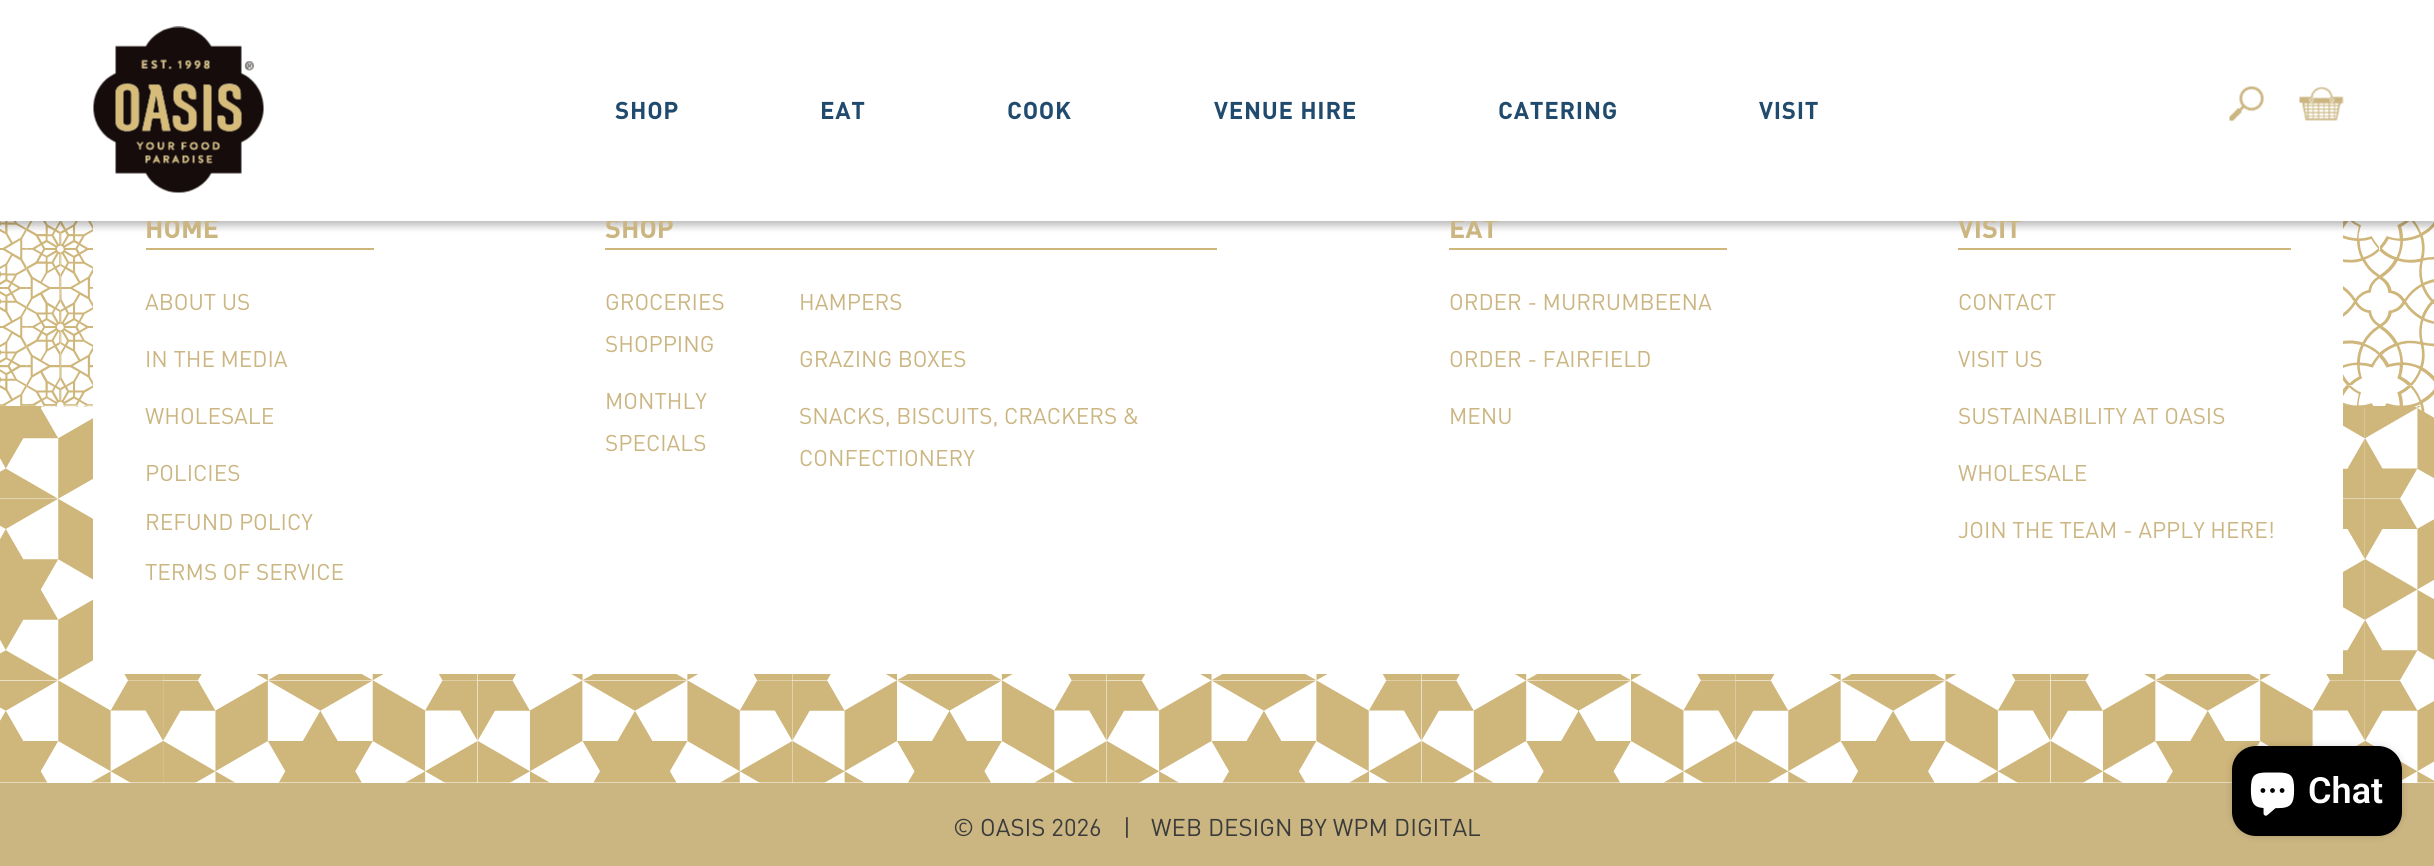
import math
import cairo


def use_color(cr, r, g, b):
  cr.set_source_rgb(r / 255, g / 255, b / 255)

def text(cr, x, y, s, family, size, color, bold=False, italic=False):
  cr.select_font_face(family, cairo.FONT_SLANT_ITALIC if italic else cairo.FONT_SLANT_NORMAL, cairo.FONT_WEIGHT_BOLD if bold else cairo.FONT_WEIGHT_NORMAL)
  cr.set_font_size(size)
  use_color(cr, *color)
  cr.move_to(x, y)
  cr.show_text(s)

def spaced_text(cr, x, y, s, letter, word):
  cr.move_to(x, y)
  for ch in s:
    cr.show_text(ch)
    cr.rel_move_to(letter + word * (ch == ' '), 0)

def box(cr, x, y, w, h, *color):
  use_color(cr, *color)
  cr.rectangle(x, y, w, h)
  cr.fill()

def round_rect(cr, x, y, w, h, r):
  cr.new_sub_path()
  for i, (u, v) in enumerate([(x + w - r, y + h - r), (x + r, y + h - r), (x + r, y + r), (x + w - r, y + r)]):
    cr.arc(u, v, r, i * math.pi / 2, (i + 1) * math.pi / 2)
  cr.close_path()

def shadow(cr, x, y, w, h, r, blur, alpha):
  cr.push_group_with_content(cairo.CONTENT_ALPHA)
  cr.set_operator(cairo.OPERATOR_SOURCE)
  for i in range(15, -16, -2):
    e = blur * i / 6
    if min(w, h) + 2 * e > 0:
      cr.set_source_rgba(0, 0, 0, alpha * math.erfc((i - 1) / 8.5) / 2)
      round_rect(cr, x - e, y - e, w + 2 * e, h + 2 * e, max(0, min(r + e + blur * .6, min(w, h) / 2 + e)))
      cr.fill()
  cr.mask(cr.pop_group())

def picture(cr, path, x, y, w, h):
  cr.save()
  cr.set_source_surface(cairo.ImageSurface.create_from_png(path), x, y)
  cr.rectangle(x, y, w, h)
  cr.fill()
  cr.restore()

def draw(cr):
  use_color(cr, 255, 255, 255)
  cr.paint()
  picture(cr, "img_04.png", 0, 221, 2434, 562)
  box(cr, 93, 221, 2250, 453, 255, 255, 255)
  use_color(cr, 0, 0, 0)
  shadow(cr, 0, 5, 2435, 220, 0, 4.5, 0.16)
  shadow(cr, 0, 5, 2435, 220, 0, 4.5, 0.16)
  box(cr, 146, 248, 228, 2, 207, 183, 123)
  box(cr, 605, 248, 612, 2, 207, 183, 123)
  box(cr, 1449, 248, 278, 2, 207, 183, 123)
  box(cr, 1958, 248, 333, 2, 207, 183, 123)
  box(cr, 0, 783, 2434, 83, 203, 182, 130)
  use_color(cr, 0, 0, 0)
  shadow(cr, 2232, 746, 170, 90, 24, 4, 0.15)
  use_color(cr, 0, 0, 0)
  round_rect(cr, 2232, 746, 170, 90, 24)
  cr.fill()
  picture(cr, "img_05.png", 2250, 772, 45, 44)
  text(cr, 145, 238, "HOME", "DIN", 27, (203, 182, 130), bold=True)
  text(cr, 145, 310, "ABOUT US", "DIN", 22.5, (203, 182, 130))
  text(cr, 145, 367, "IN THE MEDIA", "DIN", 22.5, (203, 182, 130))
  text(cr, 145, 424, "WHOLESALE", "DIN", 22.5, (203, 182, 130))
  text(cr, 145, 481, "POLICIES", "DIN", 22.5, (203, 182, 130))
  text(cr, 145, 530, "REFUND POLICY", "DIN", 22.5, (203, 182, 130))
  text(cr, 145, 580, "TERMS OF SERVICE", "DIN", 22.5, (203, 182, 130))
  text(cr, 605, 238, "SHOP", "DIN", 27, (203, 182, 130), bold=True)
  text(cr, 605, 310, "GROCERIES", "DIN", 22.5, (203, 182, 130))
  text(cr, 605, 352, "SHOPPING", "DIN", 22.5, (203, 182, 130))
  text(cr, 605, 409, "MONTHLY", "DIN", 22.5, (203, 182, 130))
  text(cr, 605, 451, "SPECIALS", "DIN", 22.5, (203, 182, 130))
  text(cr, 799, 310, "HAMPERS", "DIN", 22.5, (203, 182, 130))
  text(cr, 799, 367, "GRAZING BOXES", "DIN", 22.5, (203, 182, 130))
  text(cr, 799, 424, "SNACKS, BISCUITS, CRACKERS &", "DIN", 22.5, (203, 182, 130))
  text(cr, 799, 466, "CONFECTIONERY", "DIN", 22.5, (203, 182, 130))
  text(cr, 1449, 238, "EAT", "DIN", 27, (203, 182, 130), bold=True)
  text(cr, 1449, 310, "ORDER - MURRUMBEENA", "DIN", 22.5, (203, 182, 130))
  text(cr, 1449, 367, "ORDER - FAIRFIELD", "DIN", 22.5, (203, 182, 130))
  text(cr, 1449, 424, "MENU", "DIN", 22.5, (203, 182, 130))
  text(cr, 1958, 238, "VISIT", "DIN", 27, (203, 182, 130), bold=True)
  box(cr, 0, 0, 2434, 221, 255, 255, 255)
  picture(cr, "img_03.png", 2299, 86, 45, 35)
  picture(cr, "img_02.png", 2229, 86, 35, 36)
  cr.set_font_size(24)
  use_color(cr, 32, 75, 110)
  spaced_text(cr, 1759, 119, "VISIT", 0.75, 0)
  spaced_text(cr, 1498, 119, "CATERING", 0.75, 0)
  spaced_text(cr, 1214, 119, "VENUE HIRE", 0.75, 0)
  spaced_text(cr, 1007, 119, "COOK", 0.75, 0)
  spaced_text(cr, 820, 119, "EAT", 0.75, 0)
  spaced_text(cr, 615, 119, "SHOP", 0.75, 0)
  picture(cr, "img_01.png", 93, 26, 171, 167)
  text(cr, 1958, 310, "CONTACT", "DIN", 22.5, (203, 182, 130))
  text(cr, 1958, 367, "VISIT US", "DIN", 22.5, (203, 182, 130))
  text(cr, 1958, 424, "SUSTAINABILITY AT OASIS", "DIN", 22.5, (203, 182, 130))
  text(cr, 1958, 481, "WHOLESALE", "DIN", 22.5, (203, 182, 130))
  text(cr, 1958, 538, "JOIN THE TEAM - APPLY HERE!", "DIN", 22.5, (203, 182, 130))
  text(cr, 953, 836, "© OASIS 2026", "DIN", 24, (59, 59, 59))
  text(cr, 1123, 836, "|", "DIN", 24, (59, 59, 59))
  text(cr, 1151, 836, "WEB DESIGN BY WPM DIGITAL", "DIN", 24, (59, 59, 59))
  text(cr, 2308, 803, "Chat", "Roboto SemiBold", 36, (255, 255, 255))


surface = cairo.ImageSurface(cairo.FORMAT_RGB24, 2434, 866)
cr = cairo.Context(surface)
options = cairo.FontOptions()
options.set_hint_metrics(cairo.HINT_METRICS_OFF)
options.set_hint_style(cairo.HINT_STYLE_NONE)
cr.set_font_options(options)
cr.set_miter_limit(4)
draw(cr)
surface.write_to_png("out.png")
